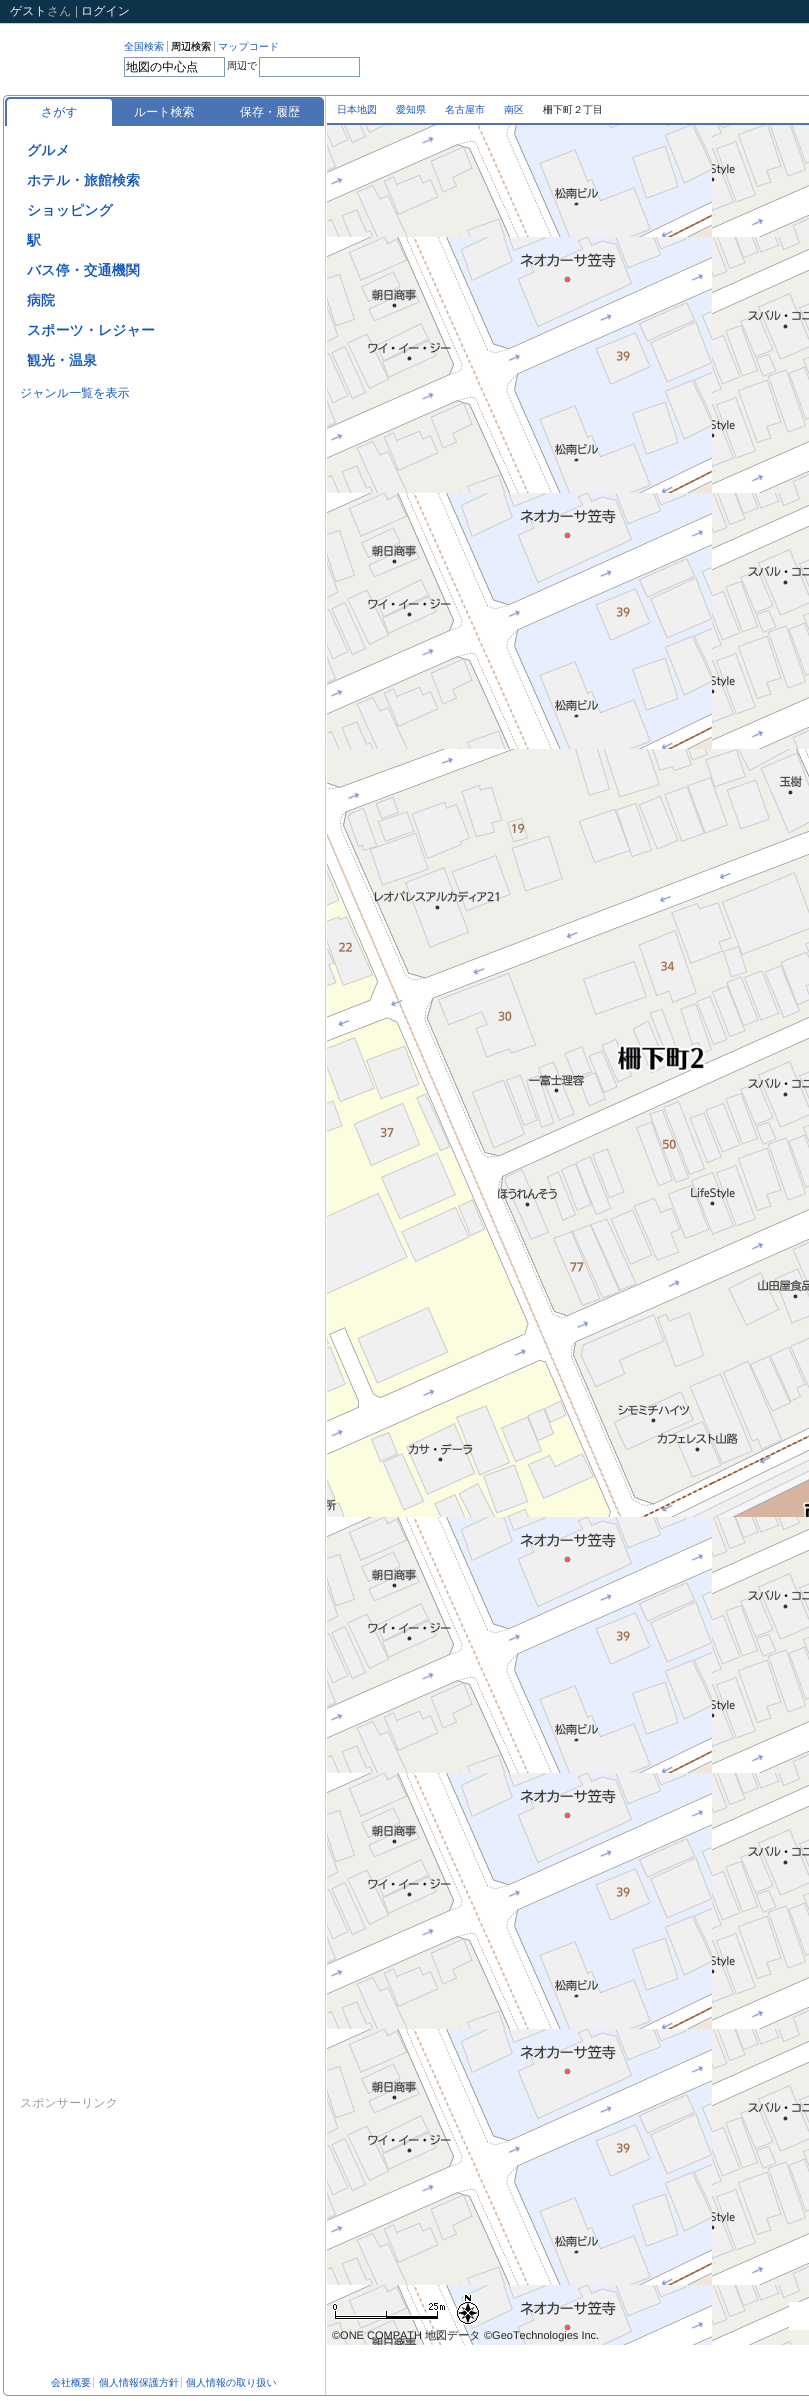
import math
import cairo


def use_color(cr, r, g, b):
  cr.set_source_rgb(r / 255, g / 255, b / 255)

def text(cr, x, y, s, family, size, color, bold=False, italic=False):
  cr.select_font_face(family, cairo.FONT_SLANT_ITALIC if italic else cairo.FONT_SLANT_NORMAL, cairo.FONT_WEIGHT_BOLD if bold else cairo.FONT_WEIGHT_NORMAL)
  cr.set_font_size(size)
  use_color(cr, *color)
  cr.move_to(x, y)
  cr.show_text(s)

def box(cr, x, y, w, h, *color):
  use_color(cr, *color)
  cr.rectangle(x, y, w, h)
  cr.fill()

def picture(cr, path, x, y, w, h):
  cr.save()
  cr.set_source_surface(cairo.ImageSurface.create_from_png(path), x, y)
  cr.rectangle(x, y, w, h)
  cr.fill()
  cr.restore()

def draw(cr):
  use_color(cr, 255, 255, 255)
  cr.paint()
  box(cr, 0, 0, 809, 23, 13, 51, 74)
  box(cr, 0, 23, 809, 1, 204, 204, 204)
  box(cr, 167, 41, 1, 11, 170, 170, 170)
  box(cr, 214, 41, 1, 11, 170, 170, 170)
  cr.rectangle(124.5, 57.5, 100, 19)
  use_color(cr, 127, 157, 185)
  cr.set_line_width(1)
  cr.stroke()
  cr.rectangle(259.5, 57.5, 100, 19)
  cr.stroke()
  cr.new_path()
  cr.move_to(8, 95.5)
  cr.line_to(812, 95.5)
  cr.curve_to(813.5, 95.5, 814.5, 96.5, 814.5, 98)
  cr.line_to(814.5, 2395.5)
  cr.line_to(8, 2395.5)
  cr.curve_to(5.5, 2395.5, 3.5, 2393.5, 3.5, 2391)
  cr.line_to(3.5, 100)
  cr.curve_to(3.5, 97.5, 5.5, 95.5, 8, 95.5)
  cr.close_path()
  use_color(cr, 149, 149, 149)
  cr.stroke()
  box(cr, 325, 96, 1, 2299, 204, 204, 204)
  use_color(cr, 74, 116, 180)
  cr.new_path()
  cr.move_to(10, 97)
  cr.line_to(319, 97)
  cr.curve_to(322, 97, 324, 99, 324, 102)
  cr.line_to(324, 126)
  cr.line_to(5, 126)
  cr.line_to(5, 102)
  cr.curve_to(5, 99, 7, 97, 10, 97)
  cr.close_path()
  cr.fill()
  use_color(cr, 255, 255, 255)
  cr.new_path()
  cr.move_to(10, 99)
  cr.line_to(109, 99)
  cr.curve_to(110.5, 99, 112, 100.5, 112, 102)
  cr.line_to(112, 126)
  cr.line_to(7, 126)
  cr.line_to(7, 102)
  cr.curve_to(7, 100.5, 8.5, 99, 10, 99)
  cr.close_path()
  cr.fill()
  box(cr, 93, 2377, 1, 11, 204, 204, 204)
  box(cr, 181, 2377, 1, 11, 204, 204, 204)
  box(cr, 327, 123, 482, 2, 74, 116, 180)
  picture(cr, "img_01.png", 327, 125, 129, 112)
  picture(cr, "img_02.png", 456, 125, 256, 112)
  picture(cr, "img_03.png", 712, 125, 97, 112)
  picture(cr, "img_04.png", 327, 237, 129, 256)
  picture(cr, "img_05.png", 456, 237, 256, 256)
  picture(cr, "img_06.png", 712, 237, 97, 256)
  picture(cr, "img_04.png", 327, 493, 129, 256)
  picture(cr, "img_05.png", 456, 493, 256, 256)
  picture(cr, "img_06.png", 712, 493, 97, 256)
  picture(cr, "img_07.png", 327, 749, 129, 256)
  picture(cr, "img_08.png", 456, 749, 256, 256)
  picture(cr, "img_09.png", 712, 749, 97, 256)
  picture(cr, "img_10.png", 327, 1005, 129, 256)
  picture(cr, "img_11.png", 456, 1005, 256, 256)
  picture(cr, "img_06.png", 712, 1005, 97, 256)
  picture(cr, "img_12.png", 327, 1261, 129, 256)
  picture(cr, "img_13.png", 456, 1261, 256, 256)
  picture(cr, "img_14.png", 712, 1261, 97, 256)
  picture(cr, "img_04.png", 327, 1517, 129, 256)
  picture(cr, "img_05.png", 456, 1517, 256, 256)
  picture(cr, "img_06.png", 712, 1517, 97, 256)
  picture(cr, "img_04.png", 327, 1773, 129, 256)
  picture(cr, "img_05.png", 456, 1773, 256, 256)
  picture(cr, "img_06.png", 712, 1773, 97, 256)
  picture(cr, "img_04.png", 327, 2029, 129, 256)
  picture(cr, "img_05.png", 456, 2029, 256, 256)
  picture(cr, "img_06.png", 712, 2029, 97, 256)
  picture(cr, "img_15.png", 327, 2285, 129, 60)
  picture(cr, "img_16.png", 456, 2285, 256, 60)
  picture(cr, "img_17.png", 712, 2285, 97, 60)
  picture(cr, "img_18.png", 332, 2294, 148, 31)
  box(cr, 789, 2302, 20, 28, 255, 255, 255)
  text(cr, 10, 15, "ゲスト", "WenQuanYi Zen Hei Medium", 12, (238, 238, 238))
  text(cr, 47, 15, "さん", "WenQuanYi Zen Hei Medium", 12, (170, 170, 170))
  text(cr, 75, 15, "|", "Liberation Sans", 12, (170, 170, 170))
  text(cr, 81, 15, "ログイン", "WenQuanYi Zen Hei Medium", 12, (238, 238, 238))
  text(cr, 124, 50, "全国検索", "WenQuanYi Zen Hei Medium", 10, (17, 85, 187))
  text(cr, 171, 50, "周辺検索", "WenQuanYi Zen Hei", 10, (34, 34, 34), bold=True)
  text(cr, 218, 50, "マップコード", "WenQuanYi Zen Hei Medium", 10, (17, 85, 187))
  text(cr, 126, 71, "地図の中心点", "WenQuanYi Zen Hei Medium", 12, (0, 0, 0))
  text(cr, 227, 69, "周辺で", "WenQuanYi Zen Hei Medium", 10, (34, 34, 34))
  text(cr, 41, 116, "さがす", "WenQuanYi Zen Hei Medium", 12, (17, 85, 187))
  text(cr, 134, 116, "ルート検索", "WenQuanYi Zen Hei Medium", 12, (255, 255, 255))
  text(cr, 240, 116, "保存・履歴", "WenQuanYi Zen Hei Medium", 12, (255, 255, 255))
  text(cr, 27, 155, "グルメ", "WenQuanYi Zen Hei", 14, (17, 85, 187), bold=True)
  text(cr, 27, 185, "ホテル・旅館検索", "WenQuanYi Zen Hei", 14, (17, 85, 187), bold=True)
  text(cr, 27, 215, "ショッピング", "WenQuanYi Zen Hei", 14, (17, 85, 187), bold=True)
  text(cr, 27, 245, "駅", "WenQuanYi Zen Hei", 14, (17, 85, 187), bold=True)
  text(cr, 27, 275, "バス停・交通機関", "WenQuanYi Zen Hei", 14, (17, 85, 187), bold=True)
  text(cr, 27, 305, "病院", "WenQuanYi Zen Hei", 14, (17, 85, 187), bold=True)
  text(cr, 27, 335, "スポーツ・レジャー", "WenQuanYi Zen Hei", 14, (17, 85, 187), bold=True)
  text(cr, 27, 365, "観光・温泉", "WenQuanYi Zen Hei", 14, (17, 85, 187), bold=True)
  text(cr, 20, 397, "ジャンル一覧を表示", "WenQuanYi Zen Hei Medium", 12, (17, 85, 187))
  text(cr, 20, 2107, "スポンサーリンク", "WenQuanYi Zen Hei Medium", 12, (153, 153, 153))
  text(cr, 51, 2386, "会社概要", "WenQuanYi Zen Hei Medium", 10, (17, 85, 187))
  text(cr, 99, 2386, "個人情報保護方針", "WenQuanYi Zen Hei Medium", 10, (17, 85, 187))
  text(cr, 186, 2386, "個人情報の取り扱い", "WenQuanYi Zen Hei Medium", 10, (17, 85, 187))
  text(cr, 337, 113, "日本地図", "WenQuanYi Zen Hei Medium", 10, (17, 85, 187))
  text(cr, 396, 113, "愛知県", "WenQuanYi Zen Hei Medium", 10, (17, 85, 187))
  text(cr, 445, 113, "名古屋市", "WenQuanYi Zen Hei Medium", 10, (17, 85, 187))
  text(cr, 504, 113, "南区", "WenQuanYi Zen Hei Medium", 10, (17, 85, 187))
  text(cr, 543, 113, "柵下町２丁目", "WenQuanYi Zen Hei Medium", 10, (34, 34, 34))
  text(cr, 424, 2338, "地図デー", "WenQuanYi Zen Hei Medium", 11, (230, 230, 230))
  text(cr, 332, 2339, "©ONE COMPATH", "Liberation Sans", 11, (34, 34, 34))
  text(cr, 425, 2339, "地図データ", "WenQuanYi Zen Hei Medium", 11, (34, 34, 34))
  text(cr, 484, 2339, "©GeoTechnologies Inc.", "Liberation Sans", 11, (34, 34, 34))


surface = cairo.ImageSurface(cairo.FORMAT_RGB24, 809, 2401)
cr = cairo.Context(surface)
options = cairo.FontOptions()
options.set_hint_metrics(cairo.HINT_METRICS_OFF)
options.set_hint_style(cairo.HINT_STYLE_NONE)
cr.set_font_options(options)
cr.set_miter_limit(4)
draw(cr)
surface.write_to_png("out.png")
